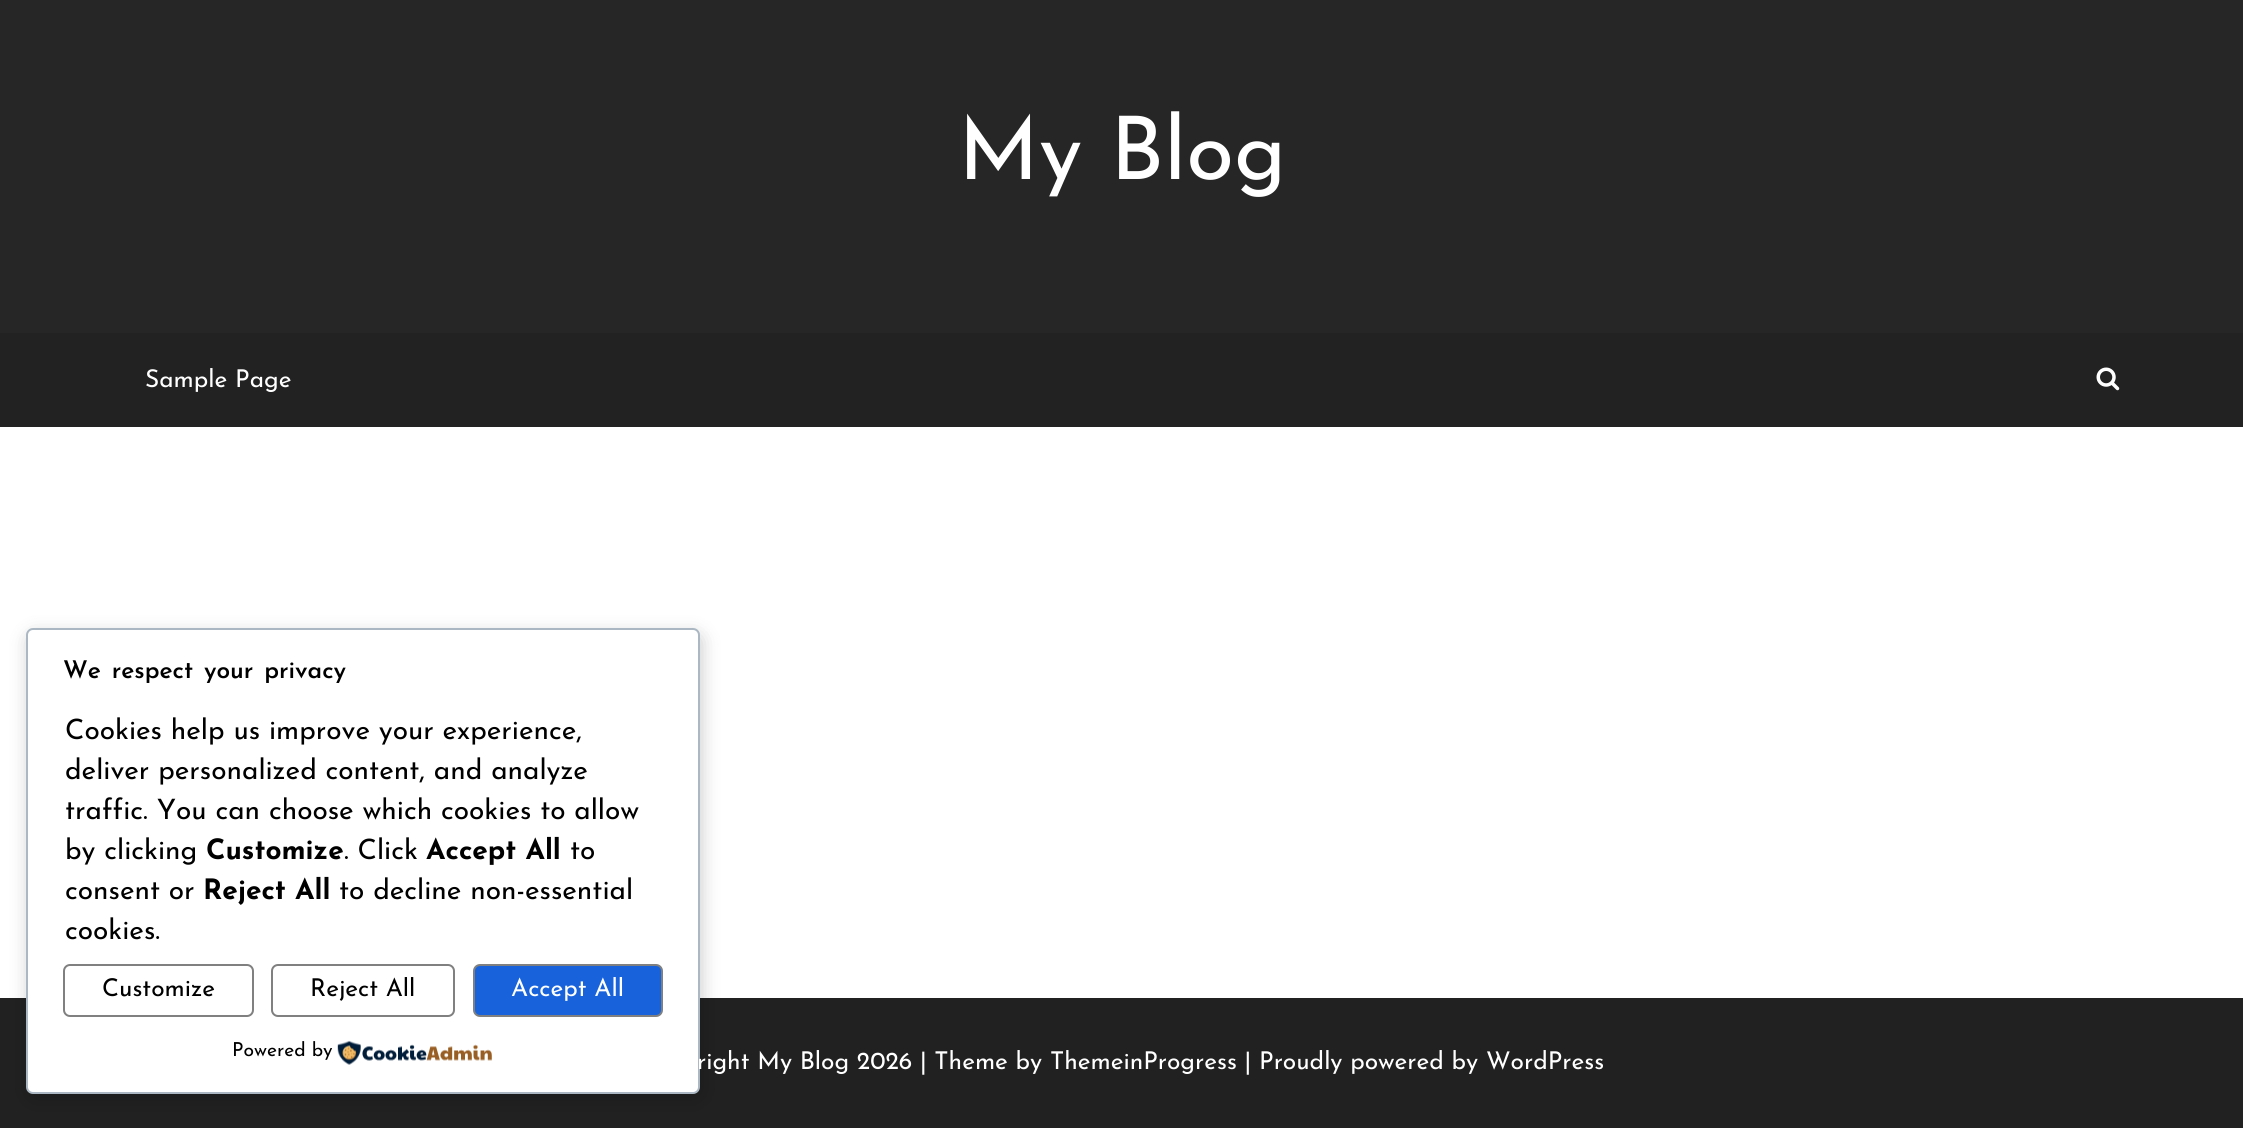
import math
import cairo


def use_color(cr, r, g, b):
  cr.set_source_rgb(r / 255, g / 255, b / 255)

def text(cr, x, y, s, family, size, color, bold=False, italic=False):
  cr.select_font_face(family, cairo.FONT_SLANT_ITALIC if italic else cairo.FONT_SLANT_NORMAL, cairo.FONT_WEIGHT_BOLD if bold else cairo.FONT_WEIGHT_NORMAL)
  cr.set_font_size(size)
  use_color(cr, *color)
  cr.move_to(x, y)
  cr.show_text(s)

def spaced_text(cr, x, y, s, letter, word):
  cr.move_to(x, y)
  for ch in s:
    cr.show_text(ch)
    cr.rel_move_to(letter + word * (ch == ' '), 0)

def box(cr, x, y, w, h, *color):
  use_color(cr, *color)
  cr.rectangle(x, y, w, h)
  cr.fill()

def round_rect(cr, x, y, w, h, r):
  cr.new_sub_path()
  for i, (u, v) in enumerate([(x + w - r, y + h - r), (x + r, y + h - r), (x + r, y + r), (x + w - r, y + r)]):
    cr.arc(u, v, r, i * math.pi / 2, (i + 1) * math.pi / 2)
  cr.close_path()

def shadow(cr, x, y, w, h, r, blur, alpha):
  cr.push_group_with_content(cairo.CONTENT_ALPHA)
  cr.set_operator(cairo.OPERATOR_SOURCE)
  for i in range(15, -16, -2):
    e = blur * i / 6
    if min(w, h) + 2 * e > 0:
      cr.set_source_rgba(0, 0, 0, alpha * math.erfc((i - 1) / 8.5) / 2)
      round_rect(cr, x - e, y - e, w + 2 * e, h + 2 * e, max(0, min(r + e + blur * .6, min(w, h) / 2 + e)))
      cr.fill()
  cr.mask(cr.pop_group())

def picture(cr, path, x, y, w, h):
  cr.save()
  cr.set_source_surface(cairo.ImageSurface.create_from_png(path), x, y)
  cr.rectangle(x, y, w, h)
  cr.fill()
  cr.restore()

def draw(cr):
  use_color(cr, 255, 255, 255)
  cr.paint()
  box(cr, 0, 0, 2243, 333, 38, 38, 38)
  box(cr, 0, 333, 2243, 94, 34, 34, 34)
  picture(cr, "img_01.png", 2096, 367, 24, 24)
  box(cr, 0, 998, 2243, 130, 33, 33, 33)
  use_color(cr, 0, 0, 0)
  shadow(cr, 28, 634, 674, 465, 7, 9, 0.2)
  use_color(cr, 255, 255, 255)
  round_rect(cr, 27, 629, 672, 464, 6)
  cr.fill_preserve()
  use_color(cr, 171, 184, 195)
  cr.stroke()
  round_rect(cr, 64, 965, 189, 51, 6)
  use_color(cr, 128, 128, 128)
  cr.stroke()
  round_rect(cr, 272, 965, 182, 51, 6)
  cr.stroke()
  use_color(cr, 24, 99, 220)
  round_rect(cr, 474, 965, 188, 51, 6)
  cr.fill_preserve()
  use_color(cr, 128, 128, 128)
  cr.stroke()
  picture(cr, "img_02.png", 337, 1040, 155, 25)
  text(cr, 958, 179, "My Blog", "Josefin Sans", 87.5, (255, 255, 255))
  text(cr, 145, 387, "Sample Page", "Josefin Sans", 24.5, (255, 255, 255))
  text(cr, 697, 1069, "right My Blog 2026 | Theme by ThemeinProgress | Proudly powered by WordPress", "Josefin Sans", 24.5, (255, 255, 255))
  cr.select_font_face("Josefin Sans SemiBold")
  use_color(cr, 0, 0, 0)
  spaced_text(cr, 63, 678, "We respect your privacy", 0, 3)
  text(cr, 65, 739, "Cookies help us improve your experience,", "Josefin Sans", 28, (0, 0, 0))
  text(cr, 65, 779, "deliver personalized content, and analyze", "Josefin Sans", 28, (0, 0, 0))
  text(cr, 65, 819, "traffic. You can choose which cookies to allow", "Josefin Sans", 28, (0, 0, 0))
  text(cr, 65, 859, "by clicking", "Josefin Sans", 28, (0, 0, 0))
  text(cr, 206, 859, "Customize", "Josefin Sans", 28, (0, 0, 0), bold=True)
  text(cr, 344, 859, ". Click", "Josefin Sans", 28, (0, 0, 0))
  text(cr, 426, 859, "Accept All", "Josefin Sans", 28, (0, 0, 0), bold=True)
  text(cr, 570, 859, "to", "Josefin Sans", 28, (0, 0, 0))
  text(cr, 65, 899, "consent or", "Josefin Sans", 28, (0, 0, 0))
  text(cr, 203, 899, "Reject All", "Josefin Sans", 28, (0, 0, 0), bold=True)
  text(cr, 339, 899, "to decline non-essential", "Josefin Sans", 28, (0, 0, 0))
  text(cr, 65, 939, "cookies.", "Josefin Sans", 28, (0, 0, 0))
  text(cr, 102, 996, "Customize", "Josefin Sans", 24.5, (0, 0, 0))
  text(cr, 310, 996, "Reject All", "Josefin Sans", 24.5, (0, 0, 0))
  text(cr, 511, 996, "Accept All", "Josefin Sans", 24.5, (255, 255, 255))
  text(cr, 232, 1056, "Powered by", "Josefin Sans", 19.25, (0, 0, 0))


surface = cairo.ImageSurface(cairo.FORMAT_RGB24, 2243, 1128)
cr = cairo.Context(surface)
options = cairo.FontOptions()
options.set_hint_metrics(cairo.HINT_METRICS_OFF)
options.set_hint_style(cairo.HINT_STYLE_NONE)
cr.set_font_options(options)
cr.set_miter_limit(4)
draw(cr)
surface.write_to_png("out.png")
